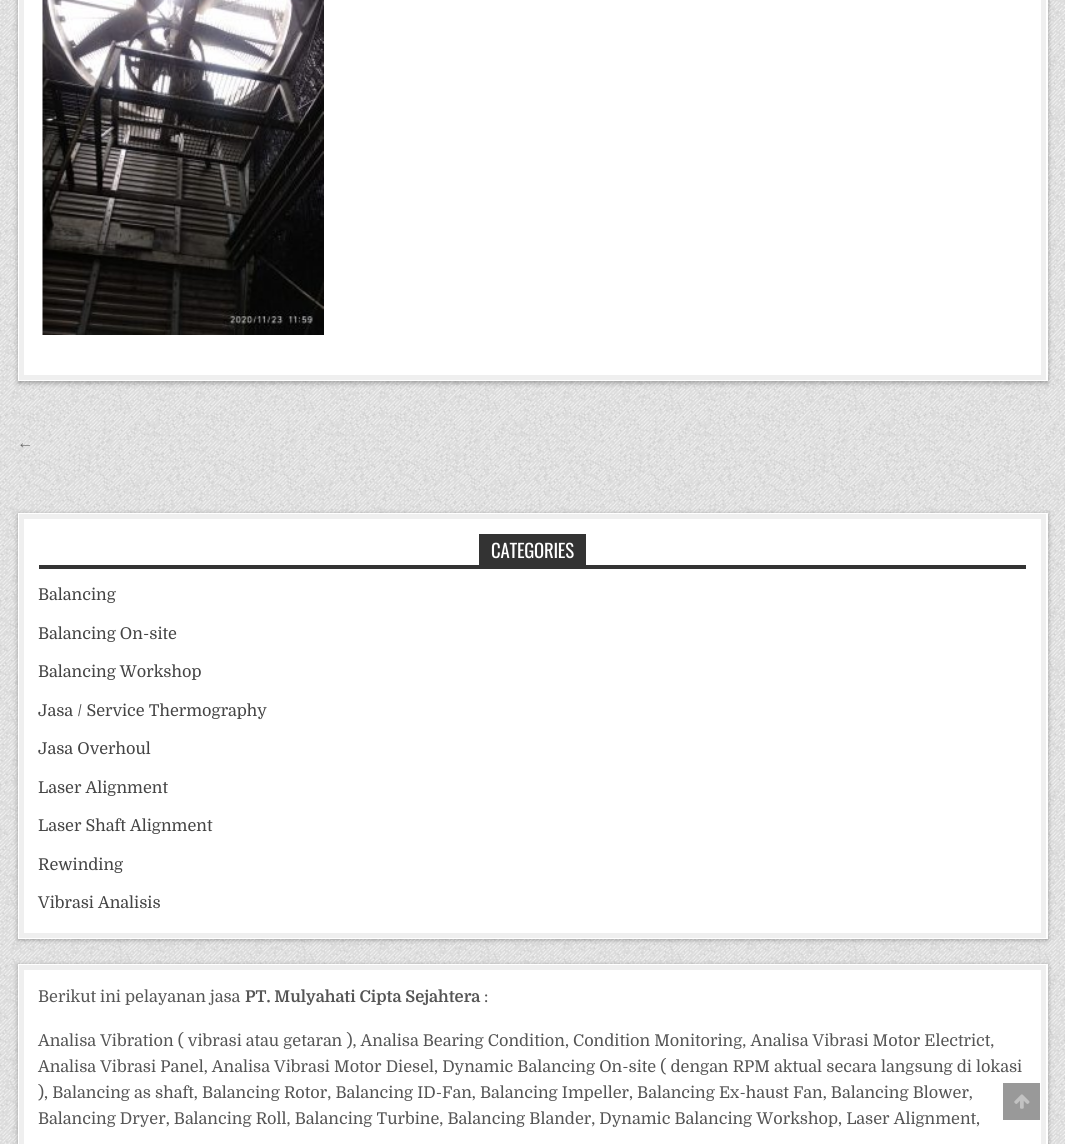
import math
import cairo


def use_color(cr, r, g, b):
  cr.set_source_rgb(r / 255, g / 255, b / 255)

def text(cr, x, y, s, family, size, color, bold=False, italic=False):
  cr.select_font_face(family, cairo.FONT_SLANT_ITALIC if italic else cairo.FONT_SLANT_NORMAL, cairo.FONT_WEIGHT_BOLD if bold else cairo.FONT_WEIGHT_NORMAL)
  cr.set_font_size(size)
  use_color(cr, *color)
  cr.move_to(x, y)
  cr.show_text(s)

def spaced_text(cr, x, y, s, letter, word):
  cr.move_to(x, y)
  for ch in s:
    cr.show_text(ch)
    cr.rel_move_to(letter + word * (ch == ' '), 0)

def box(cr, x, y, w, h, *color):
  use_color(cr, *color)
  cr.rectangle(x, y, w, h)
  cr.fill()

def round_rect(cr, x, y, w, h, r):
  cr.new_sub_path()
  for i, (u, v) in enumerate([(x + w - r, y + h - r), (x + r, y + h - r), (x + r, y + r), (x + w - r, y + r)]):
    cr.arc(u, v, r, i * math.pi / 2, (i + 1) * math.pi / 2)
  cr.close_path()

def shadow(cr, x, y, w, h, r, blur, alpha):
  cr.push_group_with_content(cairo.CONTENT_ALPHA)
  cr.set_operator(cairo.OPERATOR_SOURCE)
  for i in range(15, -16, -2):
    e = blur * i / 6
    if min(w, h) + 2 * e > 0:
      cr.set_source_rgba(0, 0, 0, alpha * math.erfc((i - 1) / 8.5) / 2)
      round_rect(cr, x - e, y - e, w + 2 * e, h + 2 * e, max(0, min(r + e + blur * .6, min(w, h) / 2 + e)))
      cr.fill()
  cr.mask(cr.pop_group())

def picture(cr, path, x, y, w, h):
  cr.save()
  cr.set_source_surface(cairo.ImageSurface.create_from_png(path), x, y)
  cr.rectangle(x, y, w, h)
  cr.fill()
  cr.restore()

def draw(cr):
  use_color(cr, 255, 255, 255)
  cr.paint()
  picture(cr, "img_01.png", 0, 0, 1065, 1144)
  use_color(cr, 0, 0, 0)
  shadow(cr, 18, -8, 1030, 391, 0, 2.5, 0.3)
  box(cr, 18, 0, 1030, 381, 255, 255, 255)
  cr.rectangle(21.5, -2.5, 1022, 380)
  use_color(cr, 239, 239, 239)
  cr.set_line_width(5)
  cr.stroke()
  picture(cr, "img_02.png", 42, 0, 282, 335)
  use_color(cr, 0, 0, 0)
  shadow(cr, 18, 514, 1030, 426, 0, 2.5, 0.3)
  box(cr, 18, 513, 1030, 426, 255, 255, 255)
  cr.rectangle(21.5, 516.5, 1022, 419)
  use_color(cr, 239, 239, 239)
  cr.stroke()
  box(cr, 39, 565, 987, 4, 51, 51, 51)
  box(cr, 479, 534, 107, 31, 51, 51, 51)
  use_color(cr, 0, 0, 0)
  shadow(cr, 18, 965, 1030, 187, 0, 2.5, 0.3)
  box(cr, 18, 964, 1030, 180, 255, 255, 255)
  cr.rectangle(21.5, 967.5, 1022, 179)
  use_color(cr, 239, 239, 239)
  cr.stroke()
  box(cr, 1003, 1083, 37, 37, 153, 153, 153)
  picture(cr, "img_03.png", 1014, 1094, 16, 15)
  text(cr, 17, 448, "←", "Liberation Sans", 16.25, (102, 102, 102))
  cr.select_font_face("Oswald")
  cr.set_font_size(18.75)
  use_color(cr, 255, 255, 255)
  spaced_text(cr, 491, 558, "CATEGORIES", -0.25, 0)
  text(cr, 38, 600, "Balancing", "Domine", 16.25, (68, 68, 68))
  text(cr, 38, 639, "Balancing On-site", "Domine", 16.25, (68, 68, 68))
  text(cr, 38, 677, "Balancing Workshop", "Domine", 16.25, (68, 68, 68))
  text(cr, 38, 716, "Jasa / Service Thermography", "Domine", 16.25, (68, 68, 68))
  text(cr, 38, 754, "Jasa Overhoul", "Domine", 16.25, (68, 68, 68))
  text(cr, 38, 793, "Laser Alignment", "Domine", 16.25, (68, 68, 68))
  text(cr, 38, 831, "Laser Shaft Alignment", "Domine", 16.25, (68, 68, 68))
  text(cr, 38, 870, "Rewinding", "Domine", 16.25, (68, 68, 68))
  text(cr, 38, 908, "Vibrasi Analisis", "Domine", 16.25, (68, 68, 68))
  text(cr, 38, 1002, "Berikut ini pelayanan jasa", "Domine", 16.25, (85, 85, 85))
  text(cr, 245, 1002, "PT. Mulyahati Cipta Sejahtera", "Domine", 16.25, (85, 85, 85), bold=True)
  text(cr, 484, 1002, ":", "Domine", 16.25, (85, 85, 85))
  text(cr, 38, 1046, "Analisa Vibration ( vibrasi atau getaran ), Analisa Bearing Condition, Condition Monitoring, Analisa Vibrasi Motor Electrict,", "Domine", 16.25, (85, 85, 85))
  text(cr, 38, 1072, "Analisa Vibrasi Panel, Analisa Vibrasi Motor Diesel, Dynamic Balancing On-site ( dengan RPM aktual secara langsung di lokasi", "Domine", 16.25, (85, 85, 85))
  text(cr, 38, 1098, "), Balancing as shaft, Balancing Rotor, Balancing ID-Fan, Balancing Impeller, Balancing Ex-haust Fan, Balancing Blower,", "Domine", 16.25, (85, 85, 85))
  text(cr, 38, 1124, "Balancing Dryer, Balancing Roll, Balancing Turbine, Balancing Blander, Dynamic Balancing Workshop, Laser Alignment,", "Domine", 16.25, (85, 85, 85))


surface = cairo.ImageSurface(cairo.FORMAT_RGB24, 1065, 1144)
cr = cairo.Context(surface)
options = cairo.FontOptions()
options.set_hint_metrics(cairo.HINT_METRICS_OFF)
options.set_hint_style(cairo.HINT_STYLE_NONE)
cr.set_font_options(options)
cr.set_miter_limit(4)
draw(cr)
surface.write_to_png("out.png")
